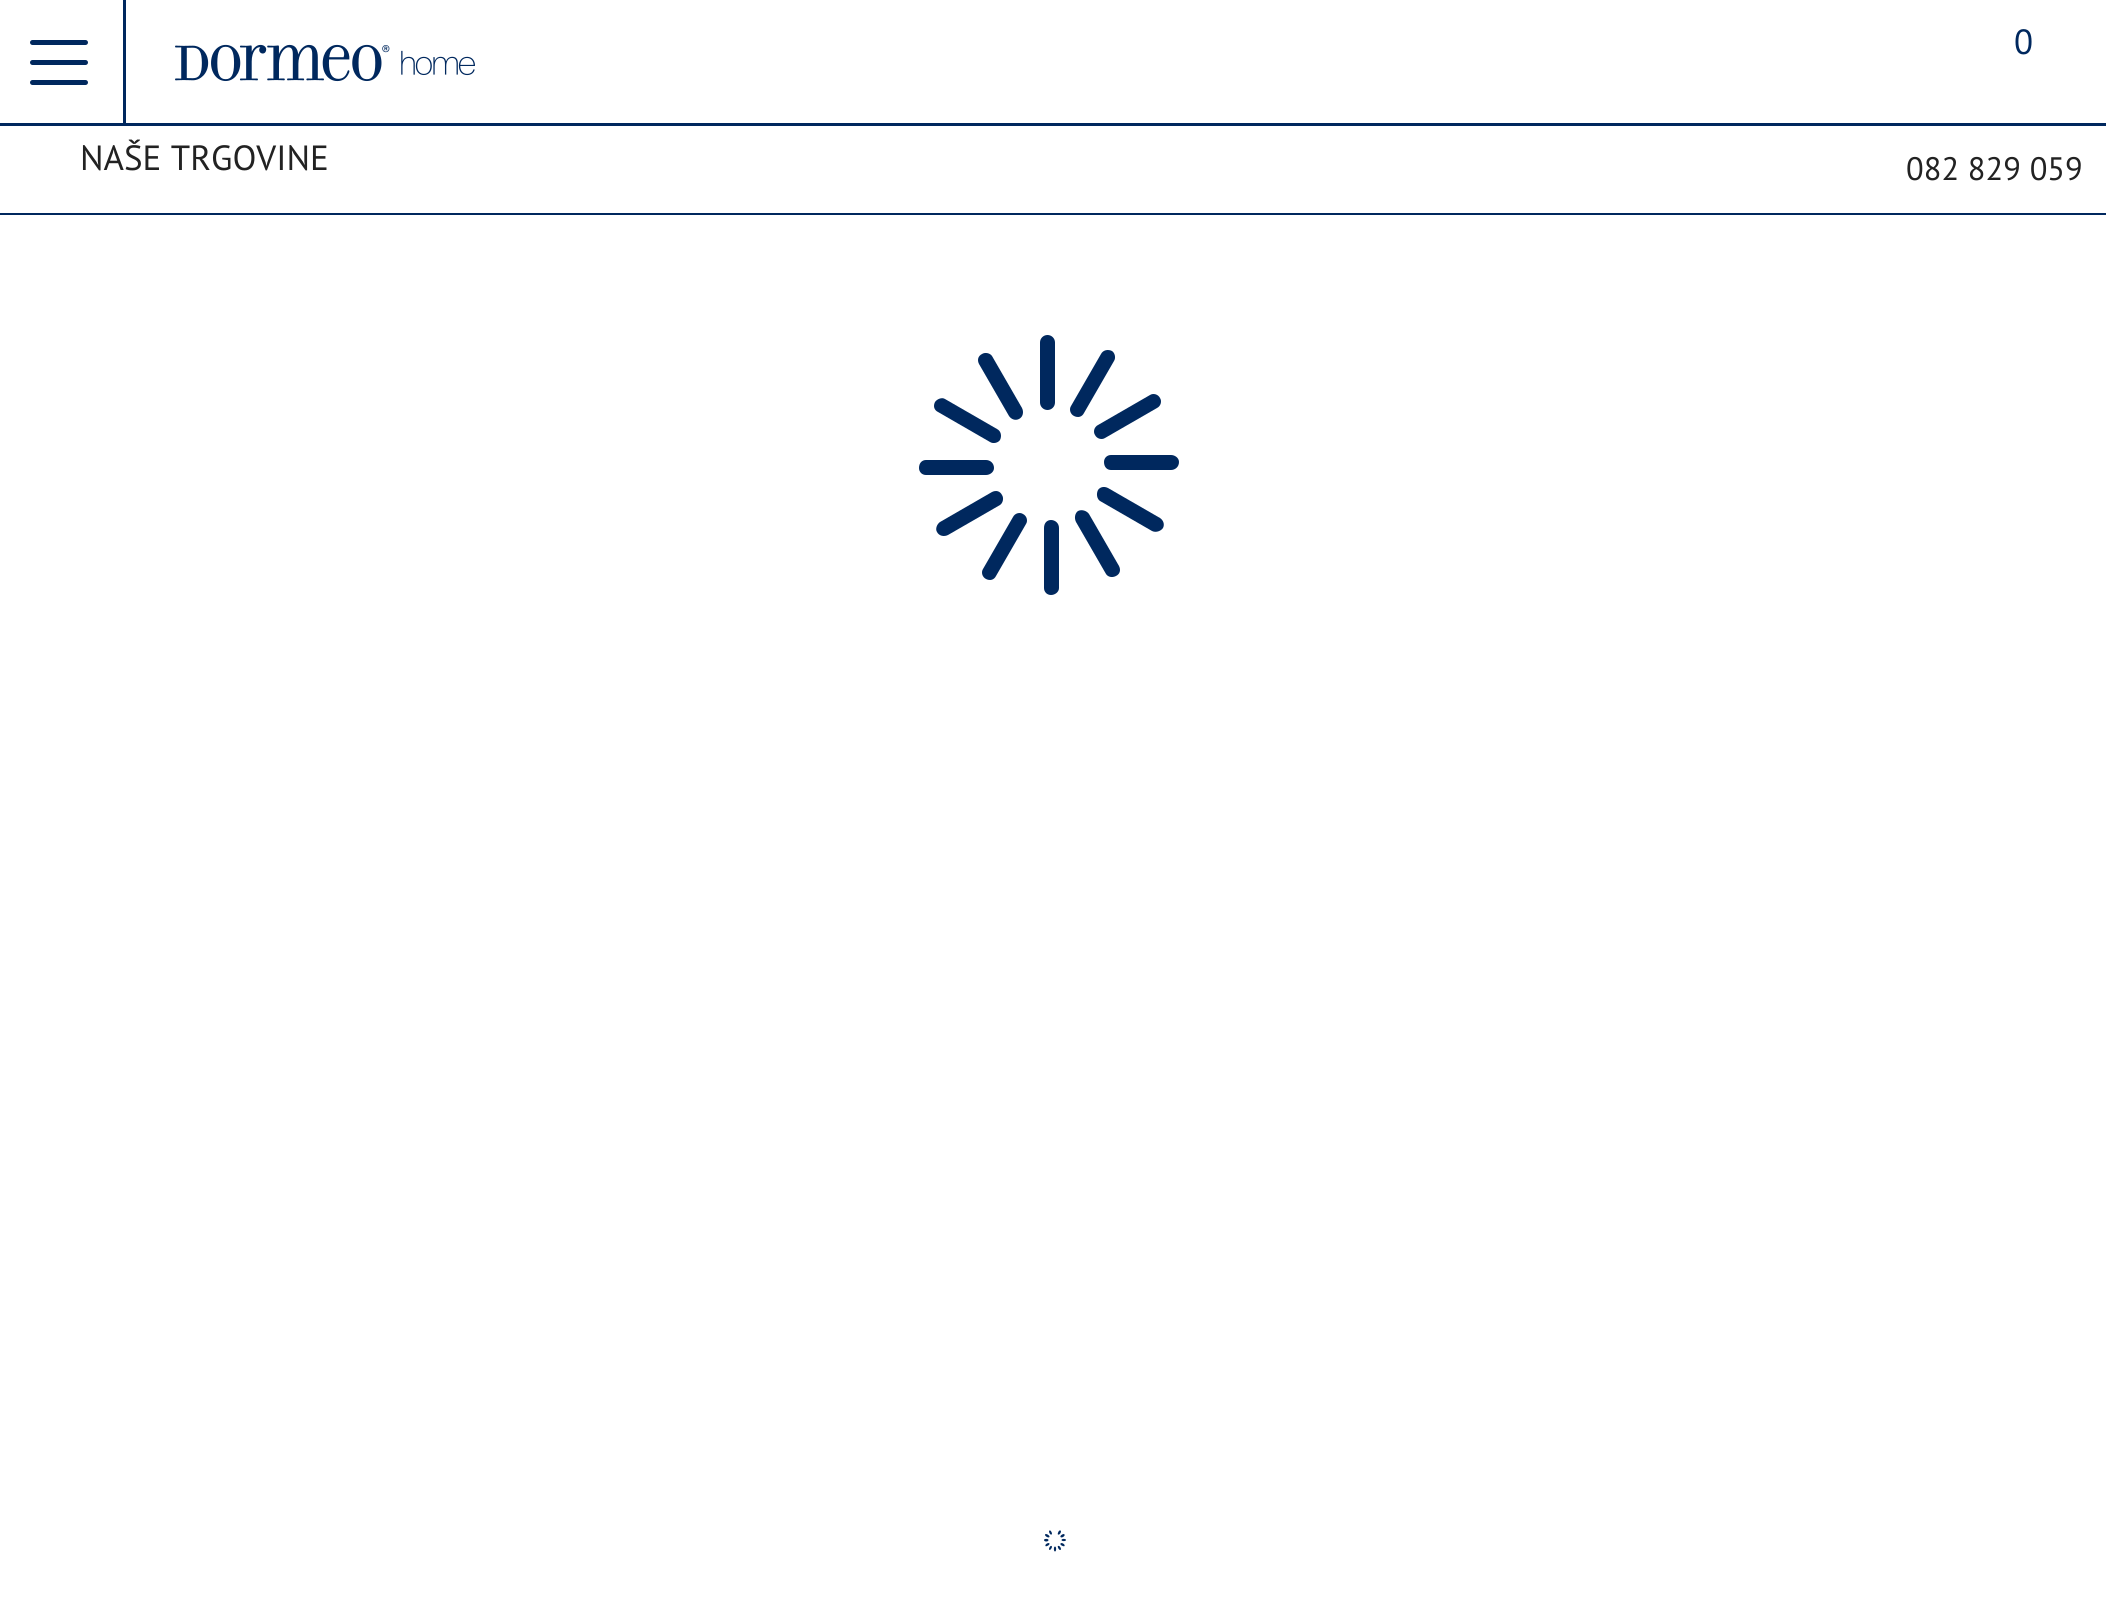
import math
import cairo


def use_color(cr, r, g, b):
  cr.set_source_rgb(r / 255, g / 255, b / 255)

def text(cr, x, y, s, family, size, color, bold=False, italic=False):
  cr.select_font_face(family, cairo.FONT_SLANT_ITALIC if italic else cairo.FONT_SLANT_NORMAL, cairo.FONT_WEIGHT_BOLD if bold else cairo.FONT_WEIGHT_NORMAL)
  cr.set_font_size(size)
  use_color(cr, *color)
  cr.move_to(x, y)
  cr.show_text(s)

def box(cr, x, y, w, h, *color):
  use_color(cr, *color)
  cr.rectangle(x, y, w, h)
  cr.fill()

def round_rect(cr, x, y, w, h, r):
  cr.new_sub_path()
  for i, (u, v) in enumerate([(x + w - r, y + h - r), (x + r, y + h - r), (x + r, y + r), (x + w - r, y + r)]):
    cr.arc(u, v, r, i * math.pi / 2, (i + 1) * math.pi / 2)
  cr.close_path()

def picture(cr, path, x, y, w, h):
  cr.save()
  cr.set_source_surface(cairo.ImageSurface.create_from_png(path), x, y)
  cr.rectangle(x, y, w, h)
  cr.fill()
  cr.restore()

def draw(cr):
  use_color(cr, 255, 255, 255)
  cr.paint()
  box(cr, 0, 123, 2106, 3, 0, 40, 94)
  box(cr, 123, 0, 3, 125, 0, 40, 94)
  round_rect(cr, 30, 80, 58, 5, 2.5)
  cr.fill()
  round_rect(cr, 30, 40, 58, 5, 2.5)
  cr.fill()
  round_rect(cr, 30, 60, 58, 5, 2.5)
  cr.fill()
  picture(cr, "img_01.png", 175, 44, 300, 38)
  box(cr, 0, 213, 2106, 2, 0, 40, 94)
  cr.new_path()
  cr.move_to(935, 402)
  cr.curve_to(937, 399, 942, 397, 945, 399)
  cr.line_to(997, 429)
  cr.curve_to(1001, 431, 1002, 436, 1000, 440)
  cr.curve_to(998, 443, 993, 444, 990, 442)
  cr.line_to(938, 412)
  cr.curve_to(934, 410, 933, 406, 935, 402)
  cr.close_path()
  cr.fill()
  cr.new_path()
  cr.move_to(982, 354)
  cr.curve_to(985, 352, 990, 353, 992, 356)
  cr.line_to(1022, 408)
  cr.curve_to(1024, 412, 1023, 417, 1019, 419)
  cr.curve_to(1015, 421, 1011, 419, 1009, 416)
  cr.line_to(979, 364)
  cr.curve_to(977, 360, 978, 356, 982, 354)
  cr.close_path()
  cr.fill()
  round_rect(cr, 1040, 335, 15, 75, 7.5)
  cr.fill()
  cr.new_path()
  cr.move_to(1112, 351)
  cr.curve_to(1115, 353, 1116, 358, 1114, 361)
  cr.line_to(1084, 413)
  cr.curve_to(1082, 417, 1078, 418, 1074, 416)
  cr.curve_to(1070, 414, 1069, 409, 1071, 406)
  cr.line_to(1101, 354)
  cr.curve_to(1103, 350, 1108, 349, 1112, 351)
  cr.close_path()
  cr.fill()
  cr.new_path()
  cr.move_to(1160, 398)
  cr.curve_to(1162, 401, 1161, 406, 1157, 408)
  cr.line_to(1105, 438)
  cr.curve_to(1102, 440, 1097, 439, 1095, 435)
  cr.curve_to(1093, 432, 1094, 427, 1098, 425)
  cr.line_to(1150, 395)
  cr.curve_to(1153, 393, 1158, 394, 1160, 398)
  cr.close_path()
  cr.fill()
  cr.new_path()
  cr.move_to(919, 468)
  cr.curve_to(919, 463, 922, 460, 926, 460)
  cr.line_to(986, 460)
  cr.curve_to(990, 460, 994, 463, 994, 468)
  cr.curve_to(994, 472, 990, 475, 986, 475)
  cr.line_to(926, 475)
  cr.curve_to(922, 475, 919, 472, 919, 468)
  cr.close_path()
  cr.fill()
  cr.new_path()
  cr.move_to(1179, 462)
  cr.curve_to(1179, 467, 1175, 470, 1171, 470)
  cr.line_to(1111, 470)
  cr.curve_to(1107, 470, 1104, 467, 1104, 462)
  cr.curve_to(1104, 458, 1107, 455, 1111, 455)
  cr.line_to(1171, 455)
  cr.curve_to(1175, 455, 1179, 458, 1179, 462)
  cr.close_path()
  cr.fill()
  cr.new_path()
  cr.move_to(986, 579)
  cr.curve_to(982, 577, 981, 572, 983, 569)
  cr.line_to(1013, 517)
  cr.curve_to(1015, 513, 1020, 512, 1023, 514)
  cr.curve_to(1027, 516, 1028, 521, 1026, 524)
  cr.line_to(996, 576)
  cr.curve_to(994, 580, 990, 581, 986, 579)
  cr.close_path()
  cr.fill()
  cr.new_path()
  cr.move_to(937, 532)
  cr.curve_to(935, 529, 937, 524, 940, 522)
  cr.line_to(992, 492)
  cr.curve_to(996, 490, 1000, 491, 1002, 495)
  cr.curve_to(1004, 498, 1003, 503, 1000, 505)
  cr.line_to(948, 535)
  cr.curve_to(944, 537, 939, 536, 937, 532)
  cr.close_path()
  cr.fill()
  cr.new_path()
  cr.move_to(1163, 528)
  cr.curve_to(1161, 531, 1156, 533, 1152, 531)
  cr.line_to(1100, 501)
  cr.curve_to(1097, 499, 1096, 494, 1098, 490)
  cr.curve_to(1100, 487, 1104, 486, 1108, 488)
  cr.line_to(1160, 518)
  cr.curve_to(1163, 520, 1165, 524, 1163, 528)
  cr.close_path()
  cr.fill()
  cr.new_path()
  cr.move_to(1051, 595)
  cr.curve_to(1047, 595, 1044, 592, 1044, 588)
  cr.line_to(1044, 528)
  cr.curve_to(1044, 523, 1047, 520, 1051, 520)
  cr.curve_to(1055, 520, 1059, 523, 1059, 528)
  cr.line_to(1059, 588)
  cr.curve_to(1059, 592, 1055, 595, 1051, 595)
  cr.close_path()
  cr.fill()
  cr.new_path()
  cr.move_to(1116, 576)
  cr.curve_to(1112, 578, 1108, 577, 1106, 574)
  cr.line_to(1076, 522)
  cr.curve_to(1074, 518, 1075, 513, 1078, 511)
  cr.curve_to(1082, 509, 1087, 511, 1089, 514)
  cr.line_to(1119, 566)
  cr.curve_to(1121, 570, 1120, 574, 1116, 576)
  cr.close_path()
  cr.fill()
  cr.new_path()
  cr.move_to(1060.5, 1530.5)
  cr.curve_to(1062, 1531.5, 1059.5, 1535.5, 1058, 1534.5)
  cr.curve_to(1057, 1534, 1059, 1529.5, 1060.5, 1530.5)
  cr.close_path()
  cr.fill()
  cr.new_path()
  cr.move_to(1064.5, 1534.5)
  cr.curve_to(1065.5, 1536, 1061.5, 1538.5, 1060.5, 1537)
  cr.curve_to(1059.5, 1535.5, 1064, 1533, 1064.5, 1534.5)
  cr.close_path()
  cr.move_to(1066, 1540)
  cr.curve_to(1066, 1541.5, 1061.5, 1541.5, 1061.5, 1540)
  cr.curve_to(1061.5, 1538.5, 1066, 1538.5, 1066, 1540)
  cr.close_path()
  cr.move_to(1064.5, 1546)
  cr.curve_to(1064, 1547, 1059.5, 1545, 1060.5, 1543.5)
  cr.curve_to(1061.5, 1542, 1065.5, 1544.5, 1064.5, 1546)
  cr.close_path()
  cr.fill()
  cr.new_path()
  cr.move_to(1060.5, 1550)
  cr.curve_to(1059, 1550.5, 1057, 1546.5, 1058, 1546)
  cr.curve_to(1059.5, 1545, 1062, 1549, 1060.5, 1550)
  cr.close_path()
  cr.move_to(1055, 1551.5)
  cr.curve_to(1053.5, 1551.5, 1053.5, 1546.5, 1055, 1546.5)
  cr.curve_to(1056.5, 1546.5, 1056.5, 1551.5, 1055, 1551.5)
  cr.close_path()
  cr.move_to(1049.5, 1550)
  cr.curve_to(1048, 1549, 1050.5, 1545, 1051.5, 1546)
  cr.curve_to(1053, 1546.5, 1050.5, 1550.5, 1049.5, 1550)
  cr.close_path()
  cr.fill()
  cr.new_path()
  cr.move_to(1045.5, 1546)
  cr.curve_to(1044.5, 1544.5, 1048.5, 1542, 1049.5, 1543.5)
  cr.curve_to(1050, 1545, 1046, 1547, 1045.5, 1546)
  cr.close_path()
  cr.move_to(1044, 1540)
  cr.curve_to(1044, 1538.5, 1048.5, 1538.5, 1048.5, 1540)
  cr.curve_to(1048.5, 1542, 1044, 1542, 1044, 1540)
  cr.close_path()
  cr.move_to(1045, 1534.5)
  cr.curve_to(1046, 1533, 1050, 1535.5, 1049.5, 1537)
  cr.curve_to(1048.5, 1538.5, 1044.5, 1536, 1045, 1534.5)
  cr.close_path()
  cr.fill()
  cr.new_path()
  cr.move_to(1049.5, 1530.5)
  cr.curve_to(1050.5, 1529.5, 1053, 1534, 1051.5, 1534.5)
  cr.curve_to(1050.5, 1535.5, 1048, 1531.5, 1049.5, 1530.5)
  cr.close_path()
  cr.fill()
  text(cr, 2014, 54, "0", "PT Sans", 35, (0, 40, 94))
  text(cr, 80, 170, "NAŠE TRGOVINE", "PT Sans", 35, (34, 34, 34))
  text(cr, 1906, 180, "082 829 059", "PT Sans", 32.5, (34, 34, 34))


surface = cairo.ImageSurface(cairo.FORMAT_RGB24, 2106, 1602)
cr = cairo.Context(surface)
options = cairo.FontOptions()
options.set_hint_metrics(cairo.HINT_METRICS_OFF)
options.set_hint_style(cairo.HINT_STYLE_NONE)
cr.set_font_options(options)
cr.set_miter_limit(4)
draw(cr)
surface.write_to_png("out.png")
